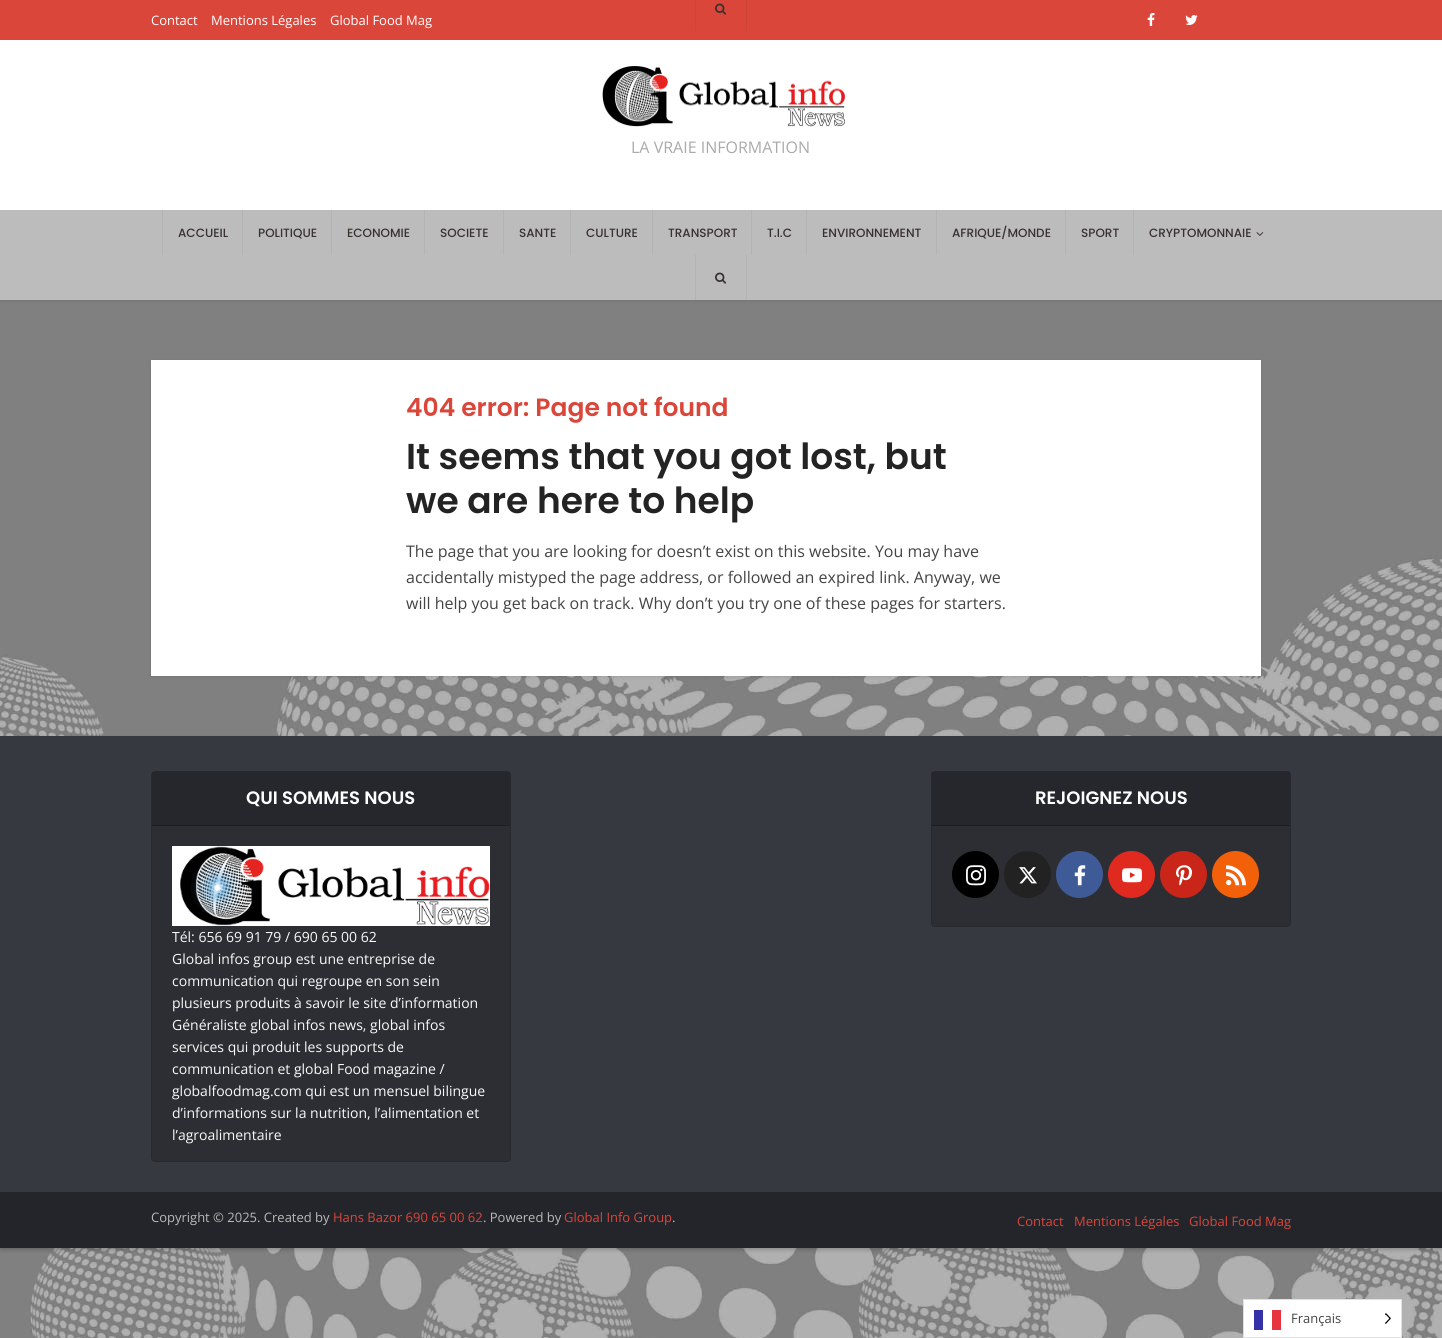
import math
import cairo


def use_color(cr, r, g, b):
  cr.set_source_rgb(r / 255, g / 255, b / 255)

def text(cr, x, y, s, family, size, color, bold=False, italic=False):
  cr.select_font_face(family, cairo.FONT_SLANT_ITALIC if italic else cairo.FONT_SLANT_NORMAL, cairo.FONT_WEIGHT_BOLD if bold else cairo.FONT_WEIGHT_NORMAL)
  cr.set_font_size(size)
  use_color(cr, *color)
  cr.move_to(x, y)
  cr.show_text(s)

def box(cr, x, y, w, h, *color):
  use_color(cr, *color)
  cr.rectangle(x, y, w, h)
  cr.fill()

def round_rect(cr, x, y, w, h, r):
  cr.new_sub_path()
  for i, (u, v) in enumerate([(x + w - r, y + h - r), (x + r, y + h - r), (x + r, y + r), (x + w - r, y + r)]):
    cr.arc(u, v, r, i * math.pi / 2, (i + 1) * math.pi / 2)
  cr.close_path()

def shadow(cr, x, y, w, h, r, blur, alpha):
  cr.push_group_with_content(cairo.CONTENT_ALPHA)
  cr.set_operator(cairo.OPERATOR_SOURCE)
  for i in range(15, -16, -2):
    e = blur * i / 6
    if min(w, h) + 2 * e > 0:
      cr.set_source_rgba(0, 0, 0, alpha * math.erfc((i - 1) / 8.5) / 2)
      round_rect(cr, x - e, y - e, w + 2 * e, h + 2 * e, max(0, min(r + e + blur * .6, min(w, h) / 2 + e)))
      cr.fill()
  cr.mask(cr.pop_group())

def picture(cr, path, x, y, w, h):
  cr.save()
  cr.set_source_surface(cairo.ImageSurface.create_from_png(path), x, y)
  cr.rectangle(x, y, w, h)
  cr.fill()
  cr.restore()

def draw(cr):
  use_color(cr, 255, 255, 255)
  cr.paint()
  picture(cr, "img_01.png", 0, 300, 1442, 1038)
  use_color(cr, 0, 0, 0)
  shadow(cr, 0, 1, 1442, 300, 0, 1.5, 0.1)
  box(cr, 0, 0, 1442, 40, 218, 70, 58)
  box(cr, 746, 0, 1, 31, 207, 67, 55)
  box(cr, 695, 0, 1, 31, 207, 67, 55)
  picture(cr, "img_02.png", 715, 3, 12, 12)
  box(cr, 0, 40, 1442, 170, 255, 255, 255)
  picture(cr, "img_03.png", 1147, 13, 8, 13)
  picture(cr, "img_04.png", 1185, 15, 13, 10)
  picture(cr, "img_05.png", 602, 66, 243, 61)
  box(cr, 0, 210, 1442, 90, 188, 188, 188)
  box(cr, 162, 210, 1, 45, 179, 179, 179)
  box(cr, 242, 210, 1, 45, 179, 179, 179)
  box(cr, 331, 210, 1, 45, 179, 179, 179)
  box(cr, 424, 210, 1, 45, 179, 179, 179)
  box(cr, 503, 210, 1, 45, 179, 179, 179)
  box(cr, 570, 210, 1, 45, 179, 179, 179)
  box(cr, 652, 210, 1, 45, 179, 179, 179)
  box(cr, 751, 210, 1, 45, 179, 179, 179)
  box(cr, 806, 210, 1, 45, 179, 179, 179)
  box(cr, 936, 210, 1, 45, 179, 179, 179)
  box(cr, 1065, 210, 1, 45, 179, 179, 179)
  box(cr, 1133, 210, 1, 45, 179, 179, 179)
  picture(cr, "img_06.png", 1256, 232, 8, 4)
  box(cr, 746, 255, 1, 45, 179, 179, 179)
  box(cr, 695, 255, 1, 45, 179, 179, 179)
  picture(cr, "img_07.png", 715, 272, 12, 12)
  use_color(cr, 0, 0, 0)
  shadow(cr, 151, 361, 1110, 316, 0, 1.5, 0.1)
  box(cr, 151, 360, 1110, 316, 255, 255, 255)
  use_color(cr, 0, 0, 0)
  shadow(cr, 0, 738, 1442, 512, 0, 2, 0.2)
  box(cr, 0, 736, 1442, 456, 55, 57, 65)
  use_color(cr, 44, 46, 52)
  round_rect(cr, 151, 771, 360, 391, 4)
  cr.fill()
  round_rect(cr, 151.5, 771.5, 359, 390, 3.5)
  cr.set_source_rgba(0, 0, 0, 0.1)
  cr.set_line_width(1)
  cr.stroke()
  cr.set_source_rgba(0, 0, 0, 0.15)
  cr.rectangle(152, 772, 358, 53)
  cr.fill()
  box(cr, 152, 825, 358, 1, 30, 31, 35)
  picture(cr, "img_08.png", 172, 846, 318, 80)
  use_color(cr, 44, 46, 52)
  round_rect(cr, 931, 771, 360, 156, 4)
  cr.fill()
  round_rect(cr, 931.5, 771.5, 359, 155, 3.5)
  cr.set_source_rgba(0, 0, 0, 0.1)
  cr.stroke()
  cr.set_source_rgba(0, 0, 0, 0.15)
  cr.rectangle(932, 772, 358, 53)
  cr.fill()
  box(cr, 932, 825, 358, 1, 30, 31, 35)
  use_color(cr, 0, 0, 0)
  cr.arc(975.5, 874.5, 23.5, 0, 2 * math.pi)
  cr.fill()
  picture(cr, "img_09.png", 966, 865, 20, 21)
  use_color(cr, 34, 34, 34)
  cr.arc(1027.5, 874.5, 23.5, 0, 2 * math.pi)
  cr.fill()
  picture(cr, "img_10.png", 1019, 867, 18, 17)
  use_color(cr, 62, 91, 152)
  cr.arc(1079.5, 874.5, 23.5, 0, 2 * math.pi)
  cr.fill()
  picture(cr, "img_11.png", 1074, 865, 12, 21)
  use_color(cr, 224, 42, 32)
  cr.arc(1131.5, 874.5, 23.5, 0, 2 * math.pi)
  cr.fill()
  picture(cr, "img_12.png", 1122, 868, 20, 15)
  use_color(cr, 201, 38, 25)
  cr.arc(1183.5, 874.5, 23.5, 0, 2 * math.pi)
  cr.fill()
  picture(cr, "img_13.png", 1176, 865, 16, 21)
  use_color(cr, 242, 97, 9)
  cr.arc(1235.5, 874.5, 23.5, 0, 2 * math.pi)
  cr.fill()
  picture(cr, "img_14.png", 1226, 865, 20, 21)
  box(cr, 0, 1192, 1442, 56, 36, 37, 42)
  use_color(cr, 255, 255, 255)
  cr.rectangle(1243.5, 1299.5, 158, 38)
  cr.fill_preserve()
  use_color(cr, 224, 224, 224)
  cr.stroke()
  box(cr, 1254, 1310, 9, 20, 0, 0, 145)
  box(cr, 1272, 1310, 9, 20, 225, 0, 15)
  cr.set_source_rgba(1, 1, 1, 0.2)
  cr.rectangle(1254, 1310, 27, 20)
  cr.fill()
  picture(cr, "img_15.png", 1385, 1313, 6, 11)
  text(cr, 151, 25, "Contact", "Open Sans", 13, (255, 255, 255))
  text(cr, 211, 25, "Mentions Légales", "Open Sans", 13, (255, 255, 255))
  text(cr, 330, 25, "Global Food Mag", "Open Sans", 13, (255, 255, 255))
  text(cr, 631, 153, "LA VRAIE INFORMATION", "Open Sans", 16, (170, 170, 170))
  text(cr, 178, 237, "ACCUEIL", "Poppins Medium", 12, (57, 48, 48))
  text(cr, 258, 237, "POLITIQUE", "Poppins Medium", 12, (57, 48, 48))
  text(cr, 347, 237, "ECONOMIE", "Poppins Medium", 12, (57, 48, 48))
  text(cr, 440, 237, "SOCIETE", "Poppins Medium", 12, (57, 48, 48))
  text(cr, 519, 237, "SANTE", "Poppins Medium", 12, (57, 48, 48))
  text(cr, 586, 237, "CULTURE", "Poppins Medium", 12, (57, 48, 48))
  text(cr, 668, 237, "TRANSPORT", "Poppins Medium", 12, (57, 48, 48))
  text(cr, 767, 237, "T.I.C", "Poppins Medium", 12, (57, 48, 48))
  text(cr, 822, 237, "ENVIRONNEMENT", "Poppins Medium", 12, (57, 48, 48))
  text(cr, 952, 237, "AFRIQUE/MONDE", "Poppins Medium", 12, (57, 48, 48))
  text(cr, 1081, 237, "SPORT", "Poppins Medium", 12, (57, 48, 48))
  text(cr, 1149, 237, "CRYPTOMONNAIE", "Poppins Medium", 12, (57, 48, 48))
  text(cr, 406, 416, "404 error: Page not found", "Poppins SemiBold", 25, (218, 70, 58))
  text(cr, 406, 469, "It seems that you got lost, but", "Poppins SemiBold", 36, (35, 35, 35))
  text(cr, 406, 513, "we are here to help", "Poppins SemiBold", 36, (35, 35, 35))
  text(cr, 406, 557, "The page that you are looking for doesn’t exist on this website. You may have", "Open Sans", 16, (68, 68, 68))
  text(cr, 406, 583, "accidentally mistyped the page address, or followed an expired link. Anyway, we", "Open Sans", 16, (68, 68, 68))
  text(cr, 406, 609, "will help you get back on track. Why don’t you try one of these pages for starters.", "Open Sans", 16, (68, 68, 68))
  text(cr, 246, 804, "QUI SOMMES NOUS", "Poppins SemiBold", 18, (255, 255, 255))
  text(cr, 172, 942, "Tél: 656 69 91 79 / 690 65 00 62", "Open Sans", 14, (249, 249, 249))
  text(cr, 172, 964, "Global infos group est une entreprise de", "Open Sans", 14, (249, 249, 249))
  text(cr, 172, 986, "communication qui regroupe en son sein", "Open Sans", 14, (249, 249, 249))
  text(cr, 172, 1008, "plusieurs produits à savoir le site d’information", "Open Sans", 14, (249, 249, 249))
  text(cr, 172, 1030, "Généraliste global infos news, global infos", "Open Sans", 14, (249, 249, 249))
  text(cr, 172, 1052, "services qui produit les supports de", "Open Sans", 14, (249, 249, 249))
  text(cr, 172, 1074, "communication et global Food magazine /", "Open Sans", 14, (249, 249, 249))
  text(cr, 172, 1096, "globalfoodmag.com qui est un mensuel bilingue", "Open Sans", 14, (249, 249, 249))
  text(cr, 172, 1118, "d’informations sur la nutrition, l’alimentation et", "Open Sans", 14, (249, 249, 249))
  text(cr, 172, 1140, "l’agroalimentaire", "Open Sans", 14, (249, 249, 249))
  text(cr, 1035, 804, "REJOIGNEZ NOUS", "Poppins SemiBold", 18, (255, 255, 255))
  text(cr, 151, 1222, "Copyright © 2025. Created by", "Open Sans", 13, (185, 185, 187))
  text(cr, 333, 1222, "Hans Bazor 690 65 00 62", "Open Sans", 13, (218, 70, 58))
  text(cr, 483, 1222, ". Powered by", "Open Sans", 13, (185, 185, 187))
  text(cr, 564, 1222, "Global Info Group", "Open Sans", 13, (218, 70, 58))
  text(cr, 672, 1222, ".", "Open Sans", 13, (185, 185, 187))
  text(cr, 1017, 1226, "Contact", "Open Sans", 13, (218, 70, 58))
  text(cr, 1074, 1226, "Mentions Légales", "Open Sans", 13, (218, 70, 58))
  text(cr, 1189, 1226, "Global Food Mag", "Open Sans", 13, (218, 70, 58))
  text(cr, 1291, 1323, "Français", "Open Sans", 13, (68, 68, 68))


surface = cairo.ImageSurface(cairo.FORMAT_RGB24, 1442, 1338)
cr = cairo.Context(surface)
options = cairo.FontOptions()
options.set_hint_metrics(cairo.HINT_METRICS_OFF)
options.set_hint_style(cairo.HINT_STYLE_NONE)
cr.set_font_options(options)
cr.set_miter_limit(4)
draw(cr)
surface.write_to_png("out.png")
